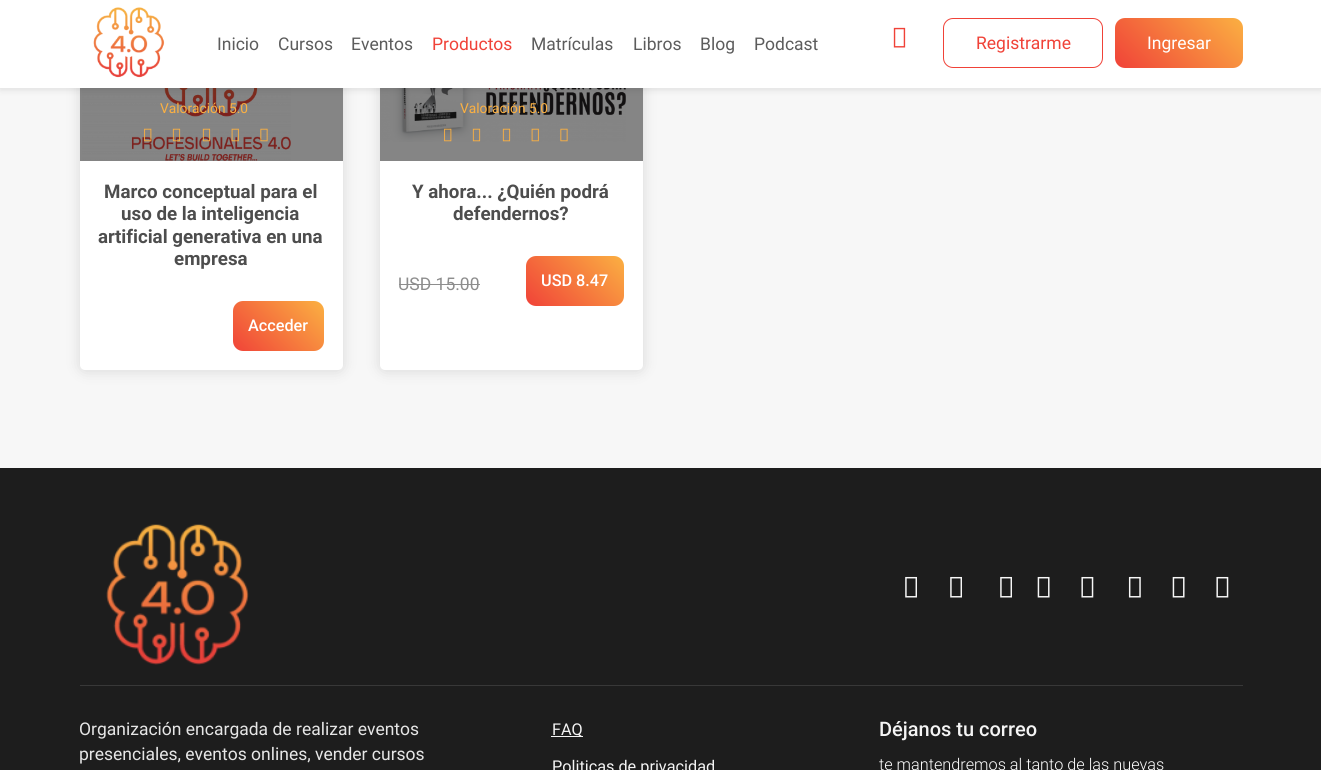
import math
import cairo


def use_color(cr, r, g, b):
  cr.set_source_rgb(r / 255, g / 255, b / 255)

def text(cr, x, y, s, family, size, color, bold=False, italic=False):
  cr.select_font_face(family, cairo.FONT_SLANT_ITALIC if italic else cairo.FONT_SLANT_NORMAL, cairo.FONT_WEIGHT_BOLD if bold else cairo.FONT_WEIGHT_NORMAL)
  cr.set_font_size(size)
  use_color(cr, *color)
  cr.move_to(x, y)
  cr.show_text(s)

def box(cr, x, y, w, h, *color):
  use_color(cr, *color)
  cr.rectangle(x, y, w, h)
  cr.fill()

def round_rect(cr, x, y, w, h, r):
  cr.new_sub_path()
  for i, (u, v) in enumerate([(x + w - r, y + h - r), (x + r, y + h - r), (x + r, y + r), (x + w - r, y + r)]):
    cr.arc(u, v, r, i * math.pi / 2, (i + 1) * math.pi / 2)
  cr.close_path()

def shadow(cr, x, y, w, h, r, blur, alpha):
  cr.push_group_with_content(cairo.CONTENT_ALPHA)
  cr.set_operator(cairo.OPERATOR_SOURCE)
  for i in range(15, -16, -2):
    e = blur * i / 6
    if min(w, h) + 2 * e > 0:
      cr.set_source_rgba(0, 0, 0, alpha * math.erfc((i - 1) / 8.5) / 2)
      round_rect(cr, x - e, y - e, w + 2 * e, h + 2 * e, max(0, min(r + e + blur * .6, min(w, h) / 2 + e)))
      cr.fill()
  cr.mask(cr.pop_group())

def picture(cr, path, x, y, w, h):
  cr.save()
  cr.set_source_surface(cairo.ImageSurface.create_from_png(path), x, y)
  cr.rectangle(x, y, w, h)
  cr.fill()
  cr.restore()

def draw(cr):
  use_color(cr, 247, 247, 247)
  cr.paint()
  use_color(cr, 0, 0, 0)
  shadow(cr, 80, 15, 263, 356, 5, 7.5, 0.12)
  use_color(cr, 255, 255, 255)
  round_rect(cr, 80, 14, 263, 356, 5)
  cr.fill()
  picture(cr, "img_03.png", 82, 88, 209, 73)
  cr.set_source_rgba(0, 0, 0, 0.48)
  cr.rectangle(80, 88, 263, 73)
  cr.fill()
  use_color(cr, 0, 0, 0)
  shadow(cr, 380, 15, 263, 356, 5, 7.5, 0.12)
  use_color(cr, 255, 255, 255)
  round_rect(cr, 380, 14, 263, 356, 5)
  cr.fill()
  picture(cr, "img_09.png", 381, 88, 245, 54)
  cr.set_source_rgba(0, 0, 0, 0.48)
  cr.rectangle(380, 88, 263, 73)
  cr.fill()
  use_color(cr, 0, 0, 0)
  shadow(cr, 0, 1, 1321, 88, 0, 4, 0.12)
  box(cr, 0, 0, 1321, 88, 255, 255, 255)
  picture(cr, "img_01.png", 93, 7, 72, 71)
  picture(cr, "img_02.png", 893, 27, 13, 21)
  round_rect(cr, 943.5, 18.5, 159, 49, 9.5)
  use_color(cr, 240, 66, 56)
  cr.set_line_width(1)
  cr.stroke()
  gradient = cairo.LinearGradient(1134, 87, 1223, -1.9)
  gradient.add_color_stop_rgba(0, 0.941, 0.259, 0.22, 1)
  gradient.add_color_stop_rgba(1, 0.984, 0.69, 0.259, 1)
  cr.set_source(gradient)
  round_rect(cr, 1115, 18, 128, 50, 10)
  cr.fill()
  picture(cr, "img_04.png", 144, 128, 8, 14)
  picture(cr, "img_05.png", 172, 128, 9, 14)
  picture(cr, "img_06.png", 202, 128, 9, 14)
  picture(cr, "img_07.png", 231, 128, 8, 14)
  picture(cr, "img_08.png", 260, 128, 8, 14)
  gradient = cairo.LinearGradient(243, 362, 313, 291)
  gradient.add_color_stop_rgba(0, 0.941, 0.259, 0.22, 1)
  gradient.add_color_stop_rgba(1, 0.984, 0.69, 0.259, 1)
  cr.set_source(gradient)
  round_rect(cr, 233, 301, 91, 50, 10)
  cr.fill()
  picture(cr, "img_10.png", 444, 128, 8, 14)
  picture(cr, "img_11.png", 472, 128, 9, 14)
  picture(cr, "img_12.png", 502, 128, 9, 14)
  picture(cr, "img_13.png", 531, 128, 8, 14)
  picture(cr, "img_14.png", 560, 128, 8, 14)
  box(cr, 399, 284, 81, 1, 141, 141, 141)
  gradient = cairo.LinearGradient(538, 318, 612, 244)
  gradient.add_color_stop_rgba(0, 0.941, 0.259, 0.22, 1)
  gradient.add_color_stop_rgba(1, 0.984, 0.69, 0.259, 1)
  cr.set_source(gradient)
  round_rect(cr, 526, 256, 98, 50, 10)
  cr.fill()
  box(cr, 0, 468, 1321, 302, 29, 29, 29)
  box(cr, 80, 685, 1163, 1, 56, 56, 56)
  picture(cr, "img_15.png", 106, 524, 143, 141)
  picture(cr, "img_16.png", 905, 576, 12, 22)
  picture(cr, "img_16.png", 950, 576, 12, 22)
  picture(cr, "img_16.png", 1000, 576, 12, 22)
  picture(cr, "img_17.png", 1037, 576, 13, 22)
  picture(cr, "img_18.png", 1081, 576, 13, 22)
  picture(cr, "img_19.png", 1128, 576, 13, 22)
  picture(cr, "img_17.png", 1172, 576, 13, 22)
  picture(cr, "img_18.png", 1216, 576, 13, 22)
  box(cr, 551, 736, 32, 1, 244, 244, 244)
  text(cr, 217, 50, "Inicio", "Roboto", 17.5, (92, 92, 92))
  text(cr, 278, 50, "Cursos", "Roboto", 17.5, (92, 92, 92))
  text(cr, 351, 50, "Eventos", "Roboto", 17.5, (92, 92, 92))
  text(cr, 432, 50, "Productos", "Roboto", 17.5, (240, 66, 56))
  text(cr, 531, 50, "Matrículas", "Roboto", 17.5, (92, 92, 92))
  text(cr, 633, 50, "Libros", "Roboto", 17.5, (92, 92, 92))
  text(cr, 700, 50, "Blog", "Roboto", 17.5, (92, 92, 92))
  text(cr, 754, 50, "Podcast", "Roboto", 17.5, (92, 92, 92))
  text(cr, 976, 49, "Registrarme", "Roboto", 17.5, (240, 66, 56))
  text(cr, 1147, 49, "Ingresar", "Roboto", 17.5, (255, 255, 255))
  text(cr, 160, 113, "Valoración 5.0", "Roboto", 13.75, (251, 176, 66))
  text(cr, 104, 198, "Marco conceptual para el", "Roboto", 18.75, (77, 77, 77), bold=True)
  text(cr, 121, 220, "uso de la inteligencia", "Roboto", 18.75, (77, 77, 77), bold=True)
  text(cr, 98, 243, "artificial generativa en una", "Roboto", 18.75, (77, 77, 77), bold=True)
  text(cr, 174, 265, "empresa", "Roboto", 18.75, (77, 77, 77), bold=True)
  text(cr, 248, 331, "Acceder", "Roboto Medium", 16.25, (255, 255, 255))
  text(cr, 460, 113, "Valoración 5.0", "Roboto", 13.75, (251, 176, 66))
  text(cr, 412, 198, "Y ahora... ¿Quién podrá", "Roboto", 18.75, (77, 77, 77), bold=True)
  text(cr, 453, 220, "defendernos?", "Roboto", 18.75, (77, 77, 77), bold=True)
  text(cr, 398, 290, "USD 15.00", "Roboto", 17.5, (141, 141, 141))
  text(cr, 541, 286, "USD 8.47", "Roboto Medium", 16.25, (255, 255, 255))
  text(cr, 79, 735, "Organización encargada de realizar eventos", "Roboto", 17.5, (230, 230, 230))
  text(cr, 79, 760, "presenciales, eventos onlines, vender cursos", "Roboto", 17.5, (230, 230, 230))
  text(cr, 552, 735, "FAQ", "Roboto", 16.25, (244, 244, 244))
  text(cr, 552, 772, "Politicas de privacidad", "Roboto", 16.25, (244, 244, 244))
  text(cr, 879, 736, "Déjanos tu correo", "Roboto Medium", 20, (244, 244, 244))
  text(cr, 879, 770, "te mantendremos al tanto de las nuevas", "Roboto Light", 16.25, (255, 255, 255))


surface = cairo.ImageSurface(cairo.FORMAT_RGB24, 1321, 770)
cr = cairo.Context(surface)
options = cairo.FontOptions()
options.set_hint_metrics(cairo.HINT_METRICS_OFF)
options.set_hint_style(cairo.HINT_STYLE_NONE)
cr.set_font_options(options)
cr.set_miter_limit(4)
draw(cr)
surface.write_to_png("out.png")
